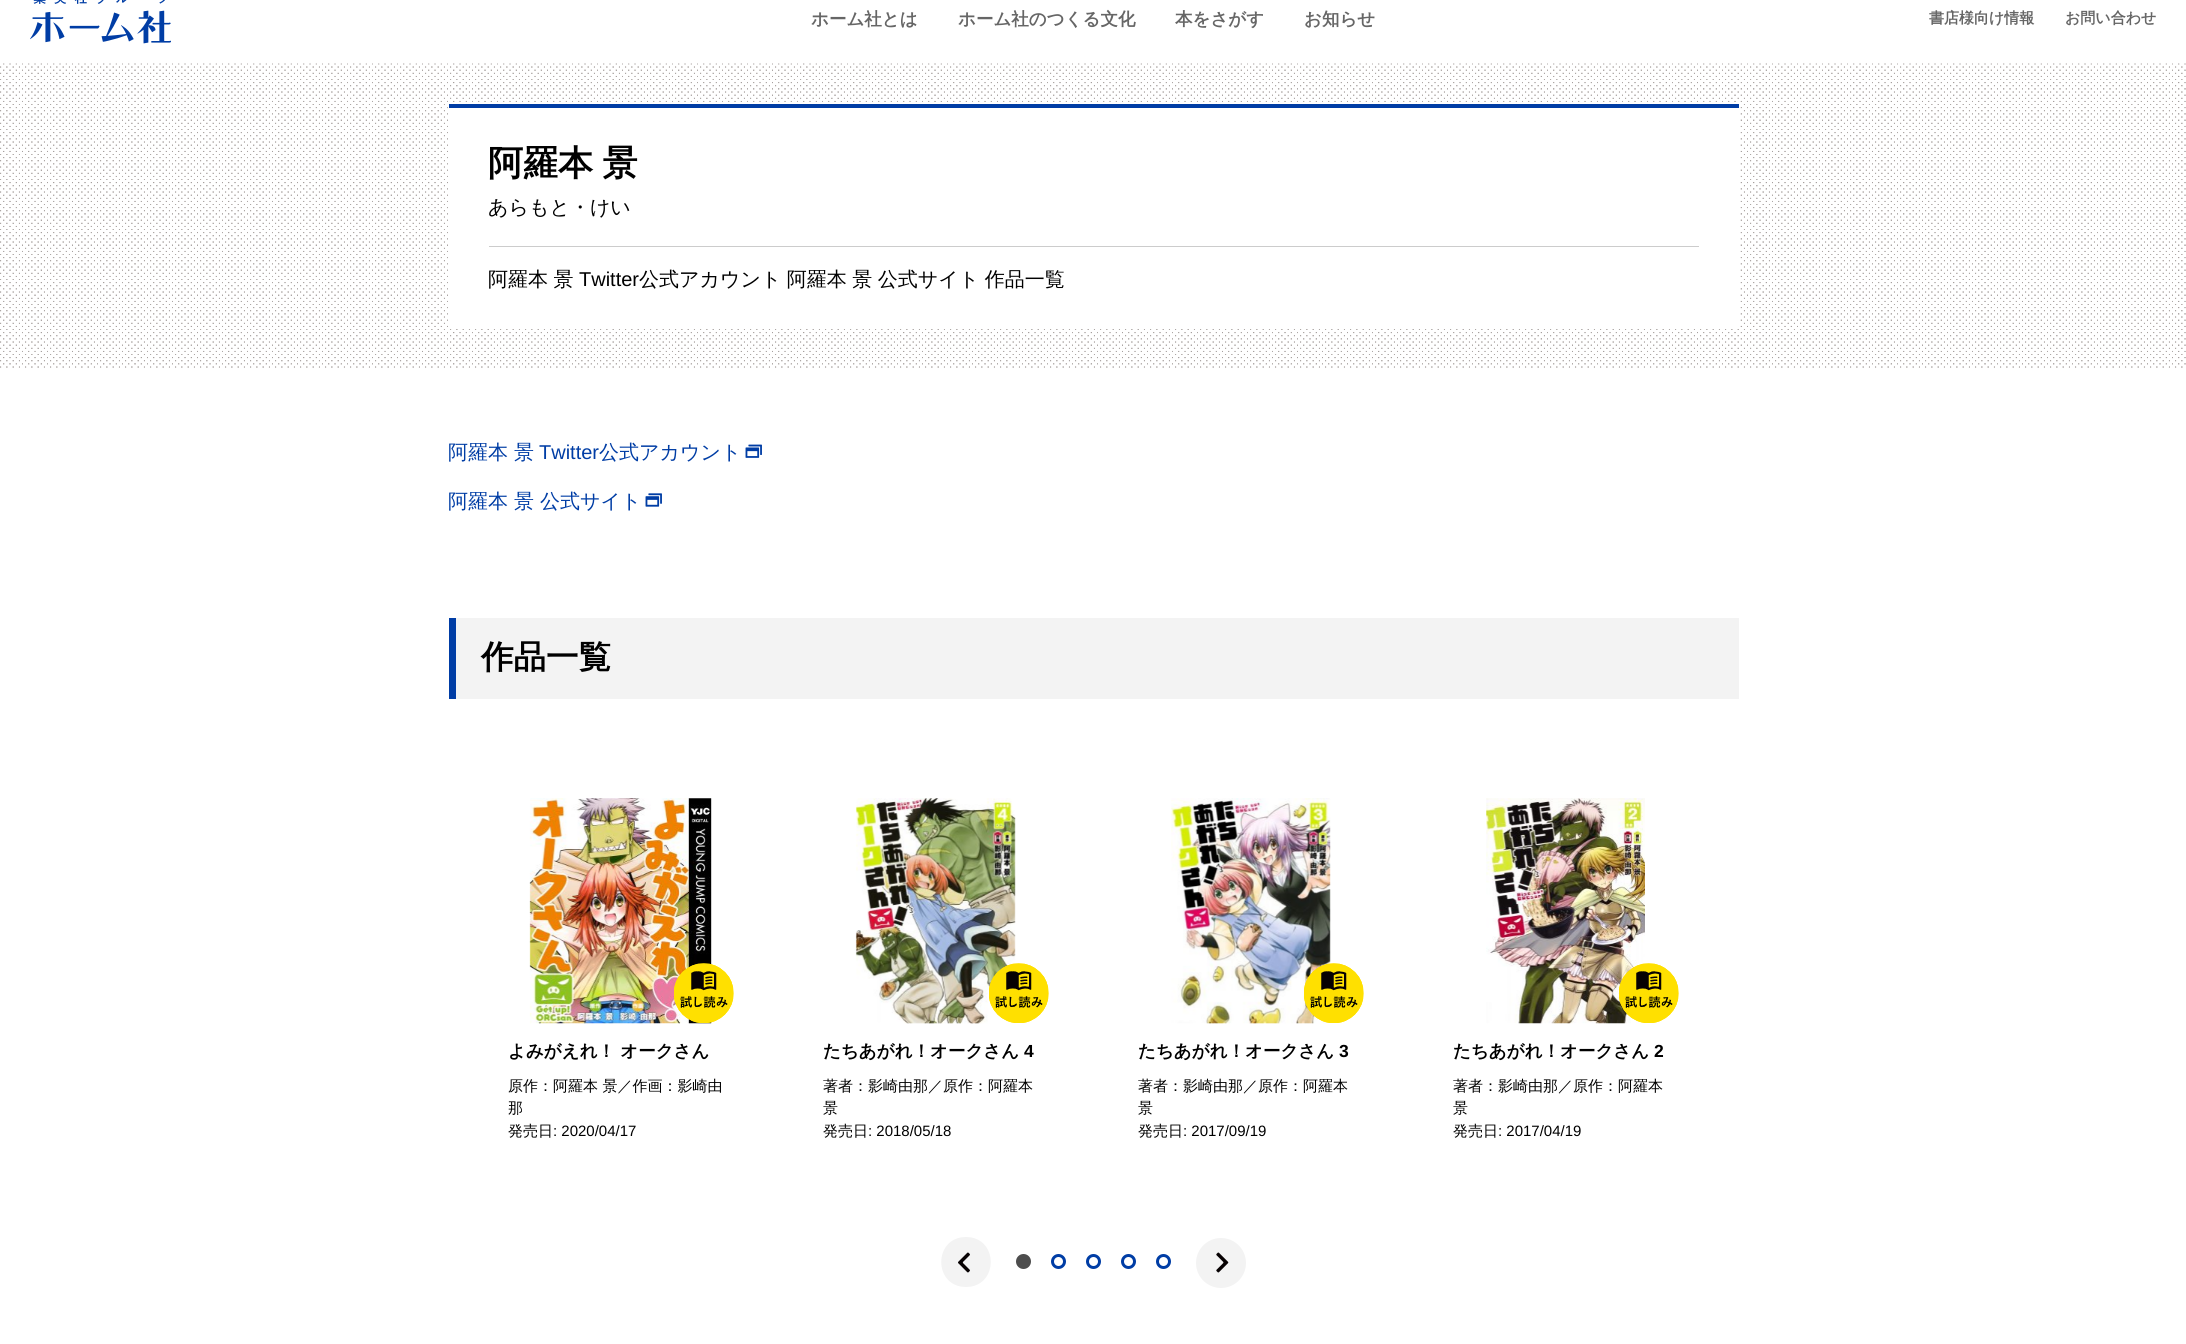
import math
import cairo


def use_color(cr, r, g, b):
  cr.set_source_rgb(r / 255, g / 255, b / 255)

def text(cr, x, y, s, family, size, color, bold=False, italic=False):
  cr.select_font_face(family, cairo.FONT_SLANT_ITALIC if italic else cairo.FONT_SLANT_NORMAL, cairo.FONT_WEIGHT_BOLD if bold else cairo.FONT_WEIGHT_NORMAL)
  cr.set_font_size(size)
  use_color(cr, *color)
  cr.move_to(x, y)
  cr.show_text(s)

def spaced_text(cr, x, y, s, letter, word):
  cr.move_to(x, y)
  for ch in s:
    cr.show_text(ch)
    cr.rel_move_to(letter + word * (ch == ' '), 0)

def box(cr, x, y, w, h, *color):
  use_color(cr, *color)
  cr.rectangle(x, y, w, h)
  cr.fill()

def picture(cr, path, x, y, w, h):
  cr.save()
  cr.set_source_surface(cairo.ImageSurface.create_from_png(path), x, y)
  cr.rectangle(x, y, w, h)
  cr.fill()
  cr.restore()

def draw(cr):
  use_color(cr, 255, 255, 255)
  cr.paint()
  picture(cr, "img_01.png", 30, 0, 141, 44)
  picture(cr, "img_02.png", 0, 63, 2186, 305)
  box(cr, 450, 108, 1289, 219, 255, 255, 255)
  box(cr, 449, 104, 1290, 4, 0, 61, 165)
  box(cr, 489, 246, 1210, 1, 204, 204, 204)
  picture(cr, "img_03.png", 745, 444, 17, 14)
  picture(cr, "img_04.png", 645, 493, 17, 14)
  box(cr, 456, 618, 1283, 81, 243, 243, 243)
  box(cr, 449, 618, 7, 81, 0, 61, 165)
  picture(cr, "img_05.png", 529, 798, 183, 226)
  picture(cr, "img_06.png", 674, 963, 60, 60)
  picture(cr, "img_07.png", 855, 798, 161, 226)
  picture(cr, "img_08.png", 989, 963, 60, 60)
  picture(cr, "img_09.png", 1171, 798, 160, 226)
  picture(cr, "img_10.png", 1304, 963, 60, 60)
  picture(cr, "img_11.png", 1486, 798, 159, 226)
  picture(cr, "img_12.png", 1619, 963, 60, 60)
  use_color(cr, 243, 243, 243)
  cr.new_path()
  cr.move_to(966, 1237)
  cr.curve_to(933, 1237, 933, 1287, 966, 1287)
  cr.curve_to(999, 1287, 999, 1237, 966, 1237)
  cr.close_path()
  cr.fill()
  picture(cr, "img_13.png", 958, 1252, 12, 21)
  use_color(cr, 77, 77, 77)
  cr.arc(1023.5, 1261.5, 6, 0, 2 * math.pi)
  cr.fill_preserve()
  cr.set_line_width(3)
  cr.stroke()
  cr.arc(1058.5, 1261.5, 6, 0, 2 * math.pi)
  use_color(cr, 0, 61, 165)
  cr.stroke()
  cr.arc(1093.5, 1261.5, 6, 0, 2 * math.pi)
  cr.stroke()
  cr.arc(1128.5, 1261.5, 6, 0, 2 * math.pi)
  cr.stroke()
  cr.arc(1163.5, 1261.5, 6, 0, 2 * math.pi)
  cr.stroke()
  use_color(cr, 243, 243, 243)
  cr.arc(1221, 1263, 25, 0, 2 * math.pi)
  cr.fill()
  picture(cr, "img_14.png", 1216, 1252, 13, 21)
  text(cr, 811, 25, "ホーム社とは", "WenQuanYi Zen Hei", 17.5, (102, 102, 102), bold=True)
  text(cr, 958, 25, "ホーム社のつくる文化", "WenQuanYi Zen Hei", 17.5, (102, 102, 102), bold=True)
  text(cr, 1175, 25, "本をさがす", "WenQuanYi Zen Hei", 17.5, (102, 102, 102), bold=True)
  text(cr, 1304, 25, "お知らせ", "WenQuanYi Zen Hei", 17.5, (102, 102, 102), bold=True)
  text(cr, 1929, 23, "書店様向け情報", "WenQuanYi Zen Hei", 15, (102, 102, 102), bold=True)
  text(cr, 2065, 23, "お問い合わせ", "WenQuanYi Zen Hei", 15, (102, 102, 102), bold=True)
  cr.set_font_size(35)
  use_color(cr, 0, 0, 0)
  spaced_text(cr, 488, 175, "阿羅本 景", 0, -1)
  text(cr, 488, 214, "あらもと・けい", "WenQuanYi Zen Hei Medium", 20, (0, 0, 0))
  spaced_text(cr, 488, 286, "阿羅本 景", 0, -0.5)
  text(cr, 579, 286, "Twitter", "Liberation Sans", 20, (0, 0, 0))
  cr.select_font_face("WenQuanYi Zen Hei Medium")
  spaced_text(cr, 639, 286, "公式アカウント 阿羅本 景 公式サイト 作品一覧", 0, -0.5)
  text(cr, 448, 459, "阿羅本 景", "WenQuanYi Zen Hei Medium", 20, (0, 61, 165))
  text(cr, 539, 459, "Twitter", "Liberation Sans", 20, (0, 61, 165))
  text(cr, 599, 459, "公式アカウント", "WenQuanYi Zen Hei Medium", 20, (0, 61, 165))
  text(cr, 448, 508, "阿羅本 景 公式サイト", "WenQuanYi Zen Hei Medium", 20, (0, 61, 165))
  text(cr, 481, 668, "作品一覧", "WenQuanYi Zen Hei", 32.5, (0, 0, 0), bold=True)
  text(cr, 508, 1057, "よみがえれ！ オークさん", "WenQuanYi Zen Hei", 17.5, (0, 0, 0), bold=True)
  text(cr, 508, 1091, "原作：阿羅本 景／作画：影崎由", "WenQuanYi Zen Hei Medium", 15, (0, 0, 0))
  text(cr, 508, 1113, "那", "WenQuanYi Zen Hei Medium", 15, (0, 0, 0))
  text(cr, 508, 1136, "発売日", "WenQuanYi Zen Hei Medium", 15, (0, 0, 0))
  text(cr, 553, 1136, ": 2020/04/17", "Liberation Sans", 15, (0, 0, 0))
  text(cr, 823, 1057, "たちあがれ！オークさん", "WenQuanYi Zen Hei", 17.5, (0, 0, 0), bold=True)
  text(cr, 1024, 1057, "4", "Liberation Sans", 17.5, (0, 0, 0), bold=True)
  text(cr, 823, 1091, "著者：影崎由那／原作：阿羅本", "WenQuanYi Zen Hei Medium", 15, (0, 0, 0))
  text(cr, 823, 1113, "景", "WenQuanYi Zen Hei Medium", 15, (0, 0, 0))
  text(cr, 823, 1136, "発売日", "WenQuanYi Zen Hei Medium", 15, (0, 0, 0))
  text(cr, 868, 1136, ": 2018/05/18", "Liberation Sans", 15, (0, 0, 0))
  text(cr, 1138, 1057, "たちあがれ！オークさん", "WenQuanYi Zen Hei", 17.5, (0, 0, 0), bold=True)
  text(cr, 1339, 1057, "3", "Liberation Sans", 17.5, (0, 0, 0), bold=True)
  text(cr, 1138, 1091, "著者：影崎由那／原作：阿羅本", "WenQuanYi Zen Hei Medium", 15, (0, 0, 0))
  text(cr, 1138, 1113, "景", "WenQuanYi Zen Hei Medium", 15, (0, 0, 0))
  text(cr, 1138, 1136, "発売日", "WenQuanYi Zen Hei Medium", 15, (0, 0, 0))
  text(cr, 1183, 1136, ": 2017/09/19", "Liberation Sans", 15, (0, 0, 0))
  text(cr, 1453, 1057, "たちあがれ！オークさん", "WenQuanYi Zen Hei", 17.5, (0, 0, 0), bold=True)
  text(cr, 1654, 1057, "2", "Liberation Sans", 17.5, (0, 0, 0), bold=True)
  text(cr, 1453, 1091, "著者：影崎由那／原作：阿羅本", "WenQuanYi Zen Hei Medium", 15, (0, 0, 0))
  text(cr, 1453, 1113, "景", "WenQuanYi Zen Hei Medium", 15, (0, 0, 0))
  text(cr, 1453, 1136, "発売日", "WenQuanYi Zen Hei Medium", 15, (0, 0, 0))
  text(cr, 1498, 1136, ": 2017/04/19", "Liberation Sans", 15, (0, 0, 0))


surface = cairo.ImageSurface(cairo.FORMAT_RGB24, 2186, 1344)
cr = cairo.Context(surface)
options = cairo.FontOptions()
options.set_hint_metrics(cairo.HINT_METRICS_OFF)
options.set_hint_style(cairo.HINT_STYLE_NONE)
cr.set_font_options(options)
cr.set_miter_limit(4)
draw(cr)
surface.write_to_png("out.png")
